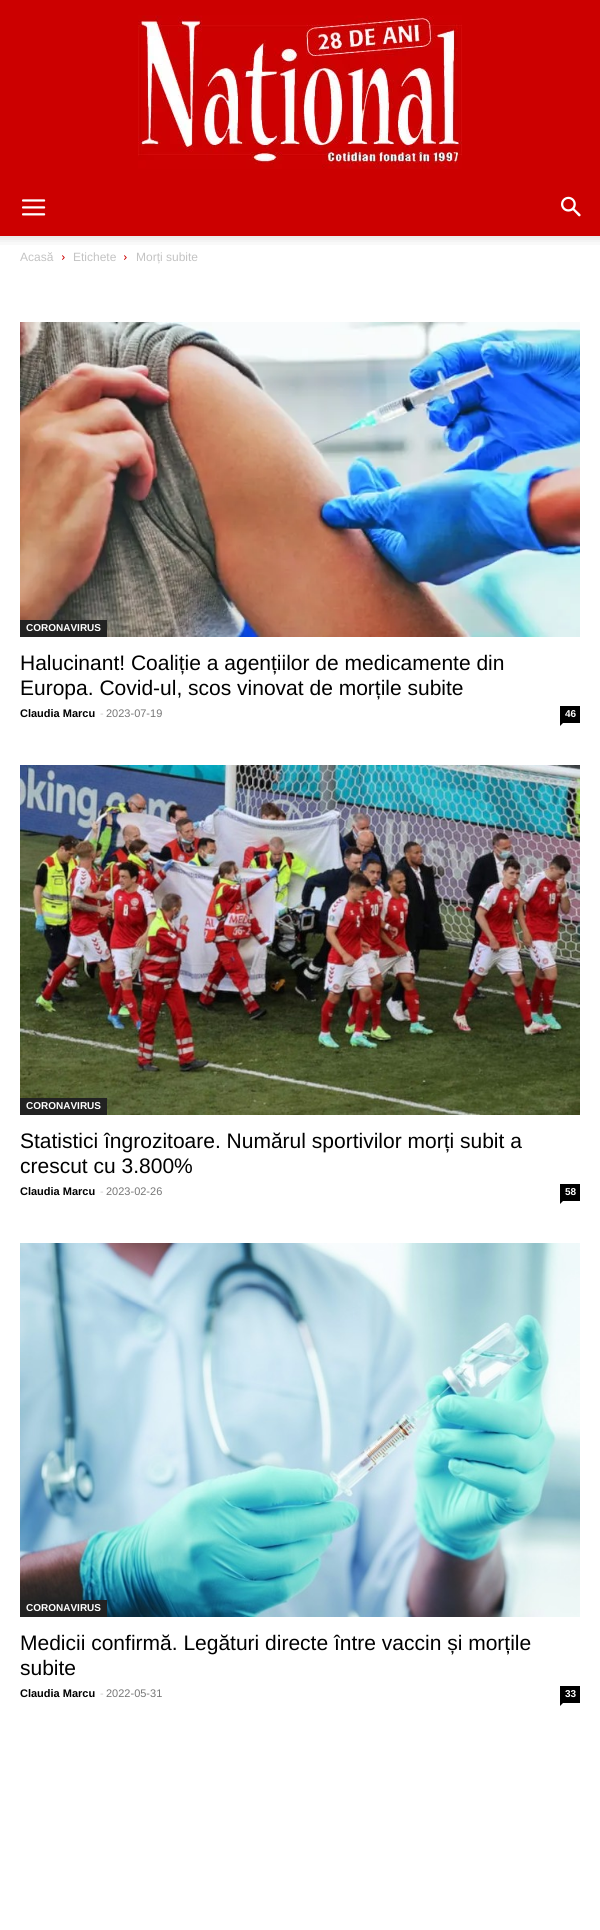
import math
import cairo


def use_color(cr, r, g, b):
  cr.set_source_rgb(r / 255, g / 255, b / 255)

def text(cr, x, y, s, family, size, color, bold=False, italic=False):
  cr.select_font_face(family, cairo.FONT_SLANT_ITALIC if italic else cairo.FONT_SLANT_NORMAL, cairo.FONT_WEIGHT_BOLD if bold else cairo.FONT_WEIGHT_NORMAL)
  cr.set_font_size(size)
  use_color(cr, *color)
  cr.move_to(x, y)
  cr.show_text(s)

def box(cr, x, y, w, h, *color):
  use_color(cr, *color)
  cr.rectangle(x, y, w, h)
  cr.fill()

def picture(cr, path, x, y, w, h):
  cr.save()
  cr.set_source_surface(cairo.ImageSurface.create_from_png(path), x, y)
  cr.rectangle(x, y, w, h)
  cr.fill()
  cr.restore()

def draw(cr):
  use_color(cr, 204, 0, 0)
  cr.paint()
  picture(cr, "img_01.png", 138, 15, 324, 154)
  picture(cr, "img_02.png", 22, 199, 24, 17)
  picture(cr, "img_03.png", 561, 196, 20, 21)
  box(cr, 0, 236, 600, 1694, 255, 255, 255)
  picture(cr, "img_04.png", 0, 236, 600, 9)
  picture(cr, "img_05.png", 62, 255, 3, 5)
  picture(cr, "img_05.png", 124, 255, 3, 5)
  picture(cr, "img_06.png", 20, 322, 560, 315)
  box(cr, 20, 620, 87, 17, 34, 34, 34)
  box(cr, 560, 706, 20, 17, 0, 0, 0)
  cr.new_path()
  cr.move_to(560, 723)
  cr.line_to(563, 723)
  cr.line_to(560, 726)
  cr.close_path()
  cr.fill()
  picture(cr, "img_07.png", 20, 765, 560, 350)
  box(cr, 20, 1098, 87, 17, 34, 34, 34)
  box(cr, 560, 1184, 20, 17, 0, 0, 0)
  cr.new_path()
  cr.move_to(560, 1201)
  cr.line_to(563, 1201)
  cr.line_to(560, 1204)
  cr.close_path()
  cr.fill()
  picture(cr, "img_08.png", 20, 1243, 560, 374)
  box(cr, 20, 1600, 87, 17, 34, 34, 34)
  box(cr, 560, 1686, 20, 17, 0, 0, 0)
  cr.new_path()
  cr.move_to(560, 1703)
  cr.line_to(563, 1703)
  cr.line_to(560, 1706)
  cr.close_path()
  cr.fill()
  text(cr, 20, 261, "Acasă", "Liberation Sans", 12, (195, 195, 195))
  text(cr, 73, 261, "Etichete", "Liberation Sans", 12, (195, 195, 195))
  text(cr, 136, 261, "Morți subite", "Liberation Sans", 12, (195, 195, 195))
  text(cr, 26, 631, "CORONAVIRUS", "Liberation Sans", 10, (255, 255, 255), bold=True)
  text(cr, 20, 670, "Halucinant! Coaliție a agențiilor de medicamente din", "Liberation Sans", 21, (0, 0, 0))
  text(cr, 20, 695, "Europa. Covid-ul, scos vinovat de morțile subite", "Liberation Sans", 21, (0, 0, 0))
  text(cr, 20, 717, "Claudia Marcu", "Liberation Sans", 11, (0, 0, 0), bold=True)
  text(cr, 100, 717, "-", "Liberation Sans", 11, (204, 204, 204))
  text(cr, 106, 717, "2023-07-19", "Liberation Sans", 11, (118, 118, 118))
  text(cr, 565, 717, "46", "Liberation Sans", 10, (255, 255, 255), bold=True)
  text(cr, 26, 1109, "CORONAVIRUS", "Liberation Sans", 10, (255, 255, 255), bold=True)
  text(cr, 20, 1148, "Statistici îngrozitoare. Numărul sportivilor morți subit a", "Liberation Sans", 21, (0, 0, 0))
  text(cr, 20, 1173, "crescut cu 3.800%", "Liberation Sans", 21, (0, 0, 0))
  text(cr, 20, 1195, "Claudia Marcu", "Liberation Sans", 11, (0, 0, 0), bold=True)
  text(cr, 100, 1195, "-", "Liberation Sans", 11, (204, 204, 204))
  text(cr, 106, 1195, "2023-02-26", "Liberation Sans", 11, (118, 118, 118))
  text(cr, 565, 1195, "58", "Liberation Sans", 10, (255, 255, 255), bold=True)
  text(cr, 26, 1611, "CORONAVIRUS", "Liberation Sans", 10, (255, 255, 255), bold=True)
  text(cr, 20, 1650, "Medicii confirmă. Legături directe între vaccin și morțile", "Liberation Sans", 21, (0, 0, 0))
  text(cr, 20, 1675, "subite", "Liberation Sans", 21, (0, 0, 0))
  text(cr, 20, 1697, "Claudia Marcu", "Liberation Sans", 11, (0, 0, 0), bold=True)
  text(cr, 100, 1697, "-", "Liberation Sans", 11, (204, 204, 204))
  text(cr, 106, 1697, "2022-05-31", "Liberation Sans", 11, (118, 118, 118))
  text(cr, 565, 1697, "33", "Liberation Sans", 10, (255, 255, 255), bold=True)


surface = cairo.ImageSurface(cairo.FORMAT_RGB24, 600, 1930)
cr = cairo.Context(surface)
options = cairo.FontOptions()
options.set_hint_metrics(cairo.HINT_METRICS_OFF)
options.set_hint_style(cairo.HINT_STYLE_NONE)
cr.set_font_options(options)
cr.set_miter_limit(4)
draw(cr)
surface.write_to_png("out.png")
